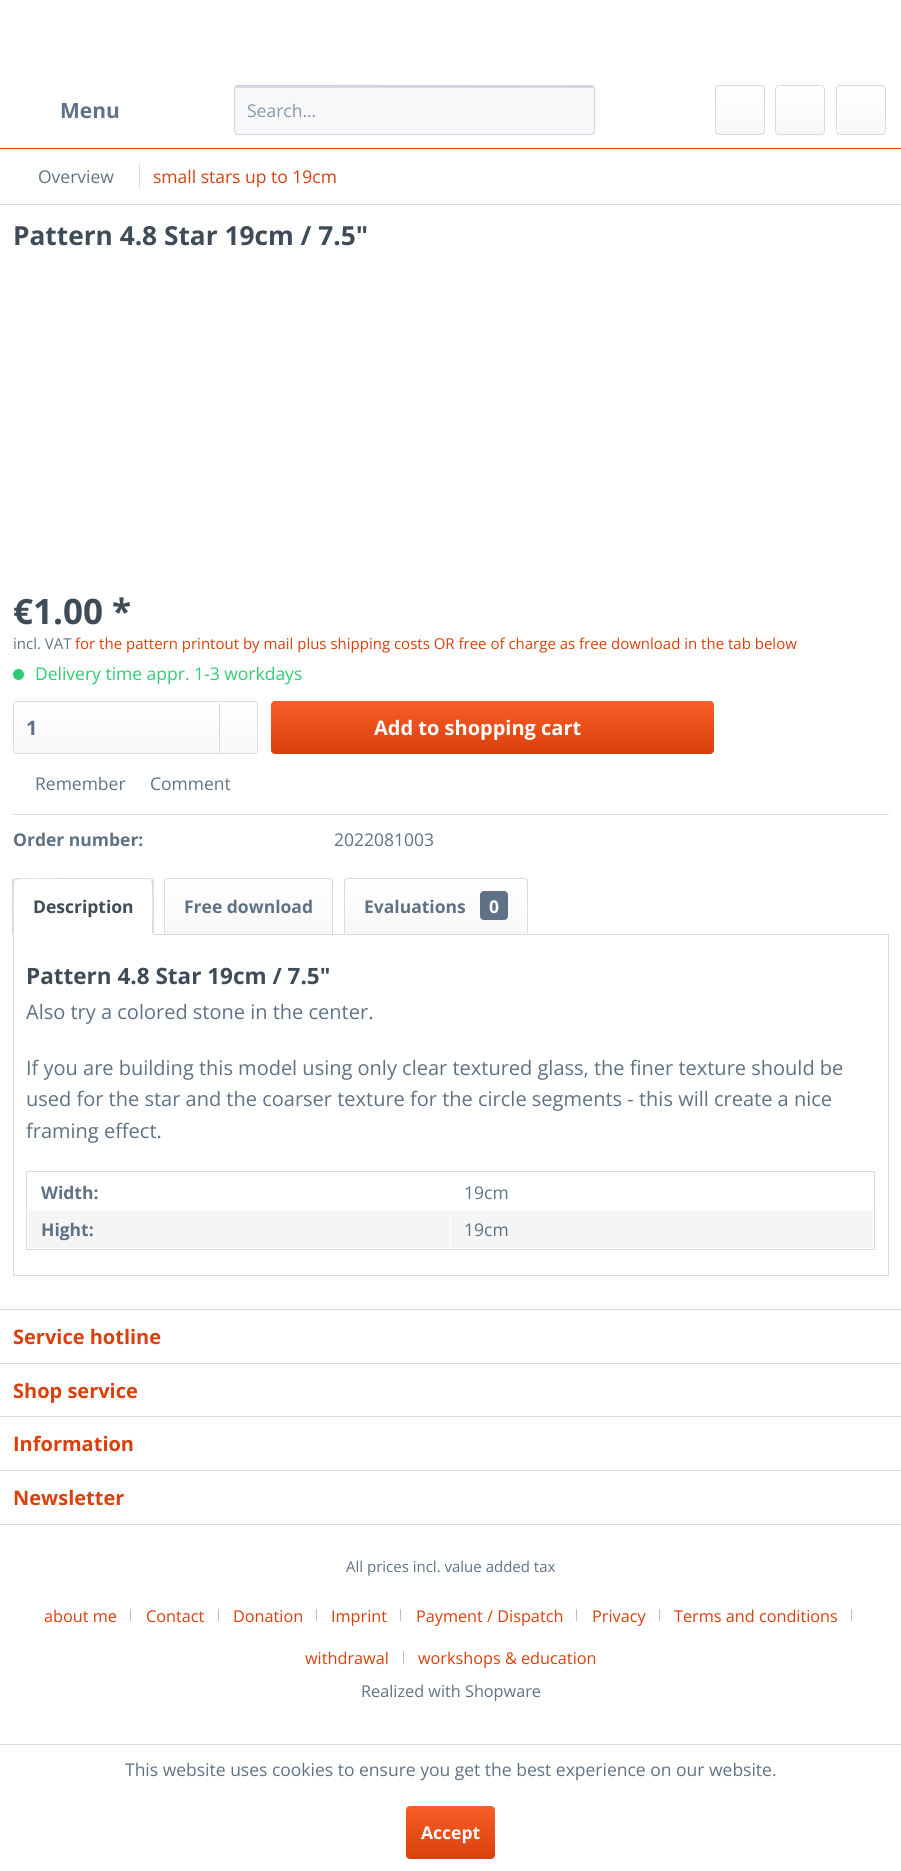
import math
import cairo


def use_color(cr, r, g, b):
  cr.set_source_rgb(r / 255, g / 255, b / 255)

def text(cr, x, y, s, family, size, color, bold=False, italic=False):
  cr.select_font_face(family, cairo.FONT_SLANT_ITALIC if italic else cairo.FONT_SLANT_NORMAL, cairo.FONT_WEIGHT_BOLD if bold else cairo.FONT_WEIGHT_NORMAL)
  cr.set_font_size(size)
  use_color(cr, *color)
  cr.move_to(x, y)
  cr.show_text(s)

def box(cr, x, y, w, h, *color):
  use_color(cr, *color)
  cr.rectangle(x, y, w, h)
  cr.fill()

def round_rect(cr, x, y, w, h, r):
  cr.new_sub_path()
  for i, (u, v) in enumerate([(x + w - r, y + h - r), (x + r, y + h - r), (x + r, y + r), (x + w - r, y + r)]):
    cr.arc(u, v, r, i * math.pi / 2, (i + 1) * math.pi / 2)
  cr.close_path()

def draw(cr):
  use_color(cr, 255, 255, 255)
  cr.paint()
  box(cr, 0, 148, 901, 1, 217, 64, 11)
  use_color(cr, 248, 248, 250)
  round_rect(cr, 234, 85, 361, 50, 4)
  cr.fill()
  use_color(cr, 218, 218, 229)
  cr.new_path()
  cr.move_to(238, 88)
  cr.line_to(591, 88)
  cr.curve_to(593, 88, 594, 89, 594, 90)
  cr.line_to(594, 87)
  cr.line_to(592, 86)
  cr.line_to(238, 86)
  cr.curve_to(235, 86, 235, 88, 235, 90)
  cr.curve_to(235, 89, 236, 88, 238, 88)
  cr.close_path()
  cr.fill()
  cr.new_path()
  cr.move_to(235.5, 86.5)
  cr.line_to(237.5, 85.5)
  cr.line_to(592, 86)
  cr.line_to(593.5, 86.5)
  use_color(cr, 203, 203, 219)
  cr.set_line_width(1.2)
  cr.stroke()
  cr.new_path()
  cr.move_to(593.5, 86.5)
  cr.line_to(594.5, 89)
  cr.line_to(594.5, 131)
  cr.line_to(593.5, 133.5)
  cr.line_to(591, 134.5)
  cr.line_to(237.5, 134.5)
  cr.line_to(235.5, 133.5)
  cr.line_to(234.5, 131)
  cr.line_to(234.5, 89)
  cr.line_to(235.5, 86.5)
  use_color(cr, 218, 218, 229)
  cr.stroke()
  gradient = cairo.LinearGradient(740, 86, 740, 134)
  gradient.add_color_stop_rgba(0, 1, 1, 1, 1)
  gradient.add_color_stop_rgba(1, 0.973, 0.973, 0.98, 1)
  cr.set_source(gradient)
  round_rect(cr, 716, 86, 48, 48, 2.5)
  cr.fill()
  round_rect(cr, 715.5, 85.5, 49, 49, 3.5)
  use_color(cr, 218, 218, 229)
  cr.set_line_width(1)
  cr.stroke()
  gradient = cairo.LinearGradient(800, 86, 800, 134)
  gradient.add_color_stop_rgba(0, 1, 1, 1, 1)
  gradient.add_color_stop_rgba(1, 0.973, 0.973, 0.98, 1)
  cr.set_source(gradient)
  round_rect(cr, 776, 86, 48, 48, 2.5)
  cr.fill()
  round_rect(cr, 775.5, 85.5, 49, 49, 3.5)
  use_color(cr, 218, 218, 229)
  cr.stroke()
  gradient = cairo.LinearGradient(861, 86, 861, 134)
  gradient.add_color_stop_rgba(0, 1, 1, 1, 1)
  gradient.add_color_stop_rgba(1, 0.973, 0.973, 0.98, 1)
  cr.set_source(gradient)
  round_rect(cr, 838, 86, 47, 48, 2.5)
  cr.fill()
  round_rect(cr, 836.5, 85.5, 49, 49, 3.5)
  use_color(cr, 218, 218, 229)
  cr.stroke()
  box(cr, 0, 204, 901, 1, 218, 218, 229)
  box(cr, 139, 164, 1, 24, 218, 218, 229)
  use_color(cr, 46, 204, 113)
  cr.arc(18.5, 674.5, 5.5, 0, 2 * math.pi)
  cr.fill()
  gradient = cairo.LinearGradient(135, 703, 135, 753)
  gradient.add_color_stop_rgba(0, 1, 1, 1, 1)
  gradient.add_color_stop_rgba(1, 0.973, 0.973, 0.98, 1)
  cr.set_source(gradient)
  round_rect(cr, 14, 703, 242, 50, 2.5)
  cr.fill()
  round_rect(cr, 13.5, 701.5, 244, 52, 3.5)
  use_color(cr, 218, 218, 229)
  cr.stroke()
  box(cr, 219, 703, 1, 50, 218, 218, 229)
  gradient = cairo.LinearGradient(493, 701, 493, 754)
  gradient.add_color_stop_rgba(0, 0.98, 0.365, 0.153, 1)
  gradient.add_color_stop_rgba(1, 0.851, 0.251, 0.043, 1)
  cr.set_source(gradient)
  round_rect(cr, 271, 701, 443, 53, 4)
  cr.fill()
  box(cr, 13, 814, 876, 1, 218, 218, 229)
  cr.rectangle(13.5, 934.5, 875, 341)
  cr.stroke()
  use_color(cr, 255, 255, 255)
  cr.new_path()
  cr.move_to(17, 878)
  cr.line_to(150, 878)
  cr.curve_to(152, 878, 154, 880, 154, 882)
  cr.line_to(154, 935)
  cr.line_to(13, 935)
  cr.line_to(13, 882)
  cr.curve_to(13, 880, 15, 878, 17, 878)
  cr.close_path()
  cr.fill()
  use_color(cr, 218, 218, 229)
  cr.new_path()
  cr.move_to(16, 878)
  cr.line_to(14, 879)
  cr.line_to(15, 880)
  cr.curve_to(16, 878, 58, 879, 61, 879)
  cr.line_to(150, 879)
  cr.line_to(151, 880)
  cr.line_to(153, 879)
  cr.line_to(150, 878)
  cr.close_path()
  cr.fill()
  cr.new_path()
  cr.move_to(153, 879)
  cr.line_to(154, 880)
  cr.line_to(154, 935)
  cr.line_to(152, 933)
  cr.curve_to(152, 927, 153, 881, 151, 880)
  cr.close_path()
  cr.fill()
  use_color(cr, 255, 255, 255)
  cr.new_path()
  cr.move_to(154, 935)
  cr.line_to(152, 933)
  cr.line_to(152, 934)
  cr.line_to(14, 934)
  cr.line_to(12, 935)
  cr.close_path()
  cr.fill()
  use_color(cr, 218, 218, 229)
  cr.new_path()
  cr.move_to(12, 935)
  cr.line_to(14, 934)
  cr.curve_to(14, 928, 13, 881, 15, 880)
  cr.line_to(14, 879)
  cr.line_to(12, 879)
  cr.close_path()
  cr.fill()
  gradient = cairo.LinearGradient(248, 879, 248, 934)
  gradient.add_color_stop_rgba(0, 1, 1, 1, 1)
  gradient.add_color_stop_rgba(1, 0.973, 0.973, 0.98, 1)
  cr.set_source(gradient)
  cr.new_path()
  cr.move_to(167.5, 879)
  cr.line_to(328.5, 879)
  cr.curve_to(330, 879, 331, 880, 331, 881.5)
  cr.line_to(331, 934)
  cr.line_to(165, 934)
  cr.line_to(165, 881.5)
  cr.curve_to(165, 880, 166, 879, 167.5, 879)
  cr.close_path()
  cr.fill()
  cr.new_path()
  cr.move_to(168, 878.5)
  cr.line_to(329, 878.5)
  cr.curve_to(331, 878.5, 332.5, 880, 332.5, 882)
  cr.line_to(332.5, 934.5)
  cr.line_to(164.5, 934.5)
  cr.line_to(164.5, 882)
  cr.curve_to(164.5, 880, 166, 878.5, 168, 878.5)
  cr.close_path()
  use_color(cr, 218, 218, 229)
  cr.stroke()
  gradient = cairo.LinearGradient(436, 879, 436, 934)
  gradient.add_color_stop_rgba(0, 1, 1, 1, 1)
  gradient.add_color_stop_rgba(1, 0.973, 0.973, 0.98, 1)
  cr.set_source(gradient)
  cr.new_path()
  cr.move_to(347.5, 879)
  cr.line_to(523.5, 879)
  cr.curve_to(525, 879, 526, 880, 526, 881.5)
  cr.line_to(526, 934)
  cr.line_to(345, 934)
  cr.line_to(345, 881.5)
  cr.curve_to(345, 880, 346, 879, 347.5, 879)
  cr.close_path()
  cr.fill()
  cr.new_path()
  cr.move_to(348, 878.5)
  cr.line_to(524, 878.5)
  cr.curve_to(526, 878.5, 527.5, 880, 527.5, 882)
  cr.line_to(527.5, 934.5)
  cr.line_to(344.5, 934.5)
  cr.line_to(344.5, 882)
  cr.curve_to(344.5, 880, 346, 878.5, 348, 878.5)
  cr.close_path()
  use_color(cr, 218, 218, 229)
  cr.stroke()
  use_color(cr, 95, 114, 133)
  round_rect(cr, 480, 891, 28, 29, 4)
  cr.fill()
  cr.rectangle(26.5, 1171.5, 848, 78)
  use_color(cr, 218, 218, 229)
  cr.stroke()
  box(cr, 29, 1211, 421, 37, 245, 245, 245)
  box(cr, 451, 1211, 422, 37, 245, 245, 245)
  box(cr, 0, 1309, 901, 1, 218, 218, 229)
  box(cr, 0, 1363, 901, 1, 218, 218, 229)
  box(cr, 0, 1416, 901, 1, 218, 218, 229)
  box(cr, 0, 1470, 901, 1, 218, 218, 229)
  box(cr, 0, 1524, 901, 1, 218, 218, 229)
  box(cr, 130, 1609, 1, 12, 188, 188, 208)
  box(cr, 218, 1609, 1, 12, 188, 188, 208)
  box(cr, 316, 1609, 1, 12, 188, 188, 208)
  box(cr, 400, 1609, 1, 12, 188, 188, 208)
  box(cr, 576, 1609, 1, 12, 188, 188, 208)
  box(cr, 659, 1609, 1, 12, 188, 188, 208)
  box(cr, 851, 1609, 1, 12, 188, 188, 208)
  box(cr, 403, 1651, 1, 13, 188, 188, 208)
  box(cr, 0, 1744, 901, 1, 218, 218, 229)
  gradient = cairo.LinearGradient(451, 1806, 451, 1859)
  gradient.add_color_stop_rgba(0, 0.98, 0.365, 0.153, 1)
  gradient.add_color_stop_rgba(1, 0.851, 0.251, 0.043, 1)
  cr.set_source(gradient)
  round_rect(cr, 406, 1806, 89, 53, 4)
  cr.fill()
  text(cr, 60, 118, "Menu", "Open Sans", 21, (95, 114, 133), bold=True)
  text(cr, 247, 117, "Search...", "Open Sans", 17.5, (135, 152, 169))
  text(cr, 38, 183, "Overview", "Open Sans", 17.5, (95, 114, 133))
  text(cr, 153, 183, "small stars up to 19cm", "Open Sans", 17.5, (217, 64, 11))
  text(cr, 13, 245, "Pattern 4.8 Star 19cm / 7.5\"", "Open Sans", 26.25, (63, 76, 88), bold=True)
  text(cr, 13, 624, "€1.00 *", "Open Sans", 35, (63, 76, 88), bold=True)
  text(cr, 13, 649, "incl. VAT", "Open Sans", 15, (95, 114, 133))
  text(cr, 75, 649, "for the pattern printout by mail plus shipping costs OR free of charge as free download in the tab below", "Open Sans", 15, (217, 64, 11))
  text(cr, 35, 680, "Delivery time appr. 1-3 workdays", "Open Sans", 17.5, (46, 204, 113))
  text(cr, 26, 735, "1", "Open Sans", 20, (95, 114, 133), bold=True)
  text(cr, 374, 735, "Add to shopping cart", "Open Sans", 20, (255, 255, 255), bold=True)
  text(cr, 35, 790, "Remember", "Open Sans", 17.5, (95, 114, 133))
  text(cr, 150, 790, "Comment", "Open Sans", 17.5, (95, 114, 133))
  text(cr, 13, 846, "Order number:", "Open Sans", 17.5, (95, 114, 133), bold=True)
  text(cr, 334, 846, "2022081003", "Open Sans", 17.5, (95, 114, 133))
  text(cr, 33, 913, "Description", "Open Sans", 17.5, (63, 76, 88), bold=True)
  text(cr, 184, 913, "Free download", "Open Sans", 17.5, (95, 114, 133), bold=True)
  text(cr, 364, 913, "Evaluations", "Open Sans", 17.5, (95, 114, 133), bold=True)
  text(cr, 489, 913, "0", "Open Sans", 17.5, (255, 255, 255), bold=True)
  text(cr, 26, 984, "Pattern 4.8 Star 19cm / 7.5\"", "Open Sans", 22.5, (63, 76, 88), bold=True)
  text(cr, 26, 1019, "Also try a colored stone in the center.", "Open Sans", 20, (95, 114, 133))
  text(cr, 26, 1075, "If you are building this model using only clear textured glass, the finer texture should be", "Open Sans", 20, (95, 114, 133))
  text(cr, 26, 1106, "used for the star and the coarser texture for the circle segments - this will create a nice", "Open Sans", 20, (95, 114, 133))
  text(cr, 26, 1138, "framing effect.", "Open Sans", 20, (95, 114, 133))
  text(cr, 41, 1199, "Width:", "Open Sans", 17.5, (95, 114, 133), bold=True)
  text(cr, 464, 1199, "19cm", "Open Sans", 17.5, (95, 114, 133))
  text(cr, 41, 1236, "Hight:", "Open Sans", 17.5, (95, 114, 133), bold=True)
  text(cr, 464, 1236, "19cm", "Open Sans", 17.5, (95, 114, 133))
  text(cr, 13, 1344, "Service hotline", "Open Sans", 20, (217, 64, 11), bold=True)
  text(cr, 13, 1398, "Shop service", "Open Sans", 20, (217, 64, 11), bold=True)
  text(cr, 13, 1451, "Information", "Open Sans", 20, (217, 64, 11), bold=True)
  text(cr, 13, 1505, "Newsletter", "Open Sans", 20, (217, 64, 11), bold=True)
  text(cr, 346, 1572, "All prices incl. value added tax", "Open Sans", 15, (95, 114, 133))
  text(cr, 44, 1622, "about me", "Open Sans", 16.25, (217, 64, 11))
  text(cr, 146, 1622, "Contact", "Open Sans", 16.25, (217, 64, 11))
  text(cr, 233, 1622, "Donation", "Open Sans", 16.25, (217, 64, 11))
  text(cr, 331, 1622, "Imprint", "Open Sans", 16.25, (217, 64, 11))
  text(cr, 416, 1622, "Payment / Dispatch", "Open Sans", 16.25, (217, 64, 11))
  text(cr, 592, 1622, "Privacy", "Open Sans", 16.25, (217, 64, 11))
  text(cr, 674, 1622, "Terms and conditions", "Open Sans", 16.25, (217, 64, 11))
  text(cr, 305, 1664, "withdrawal", "Open Sans", 16.25, (217, 64, 11))
  text(cr, 418, 1664, "workshops & education", "Open Sans", 16.25, (217, 64, 11))
  text(cr, 361, 1697, "Realized with Shopware", "Open Sans", 16.25, (95, 114, 133))
  text(cr, 125, 1776, "This website uses cookies to ensure you get the best experience on our website.", "Open Sans", 17.5, (95, 114, 133))
  text(cr, 421, 1839, "Accept", "Open Sans", 17.5, (255, 255, 255), bold=True)


surface = cairo.ImageSurface(cairo.FORMAT_RGB24, 901, 1871)
cr = cairo.Context(surface)
options = cairo.FontOptions()
options.set_hint_metrics(cairo.HINT_METRICS_OFF)
options.set_hint_style(cairo.HINT_STYLE_NONE)
cr.set_font_options(options)
cr.set_miter_limit(4)
draw(cr)
surface.write_to_png("out.png")
